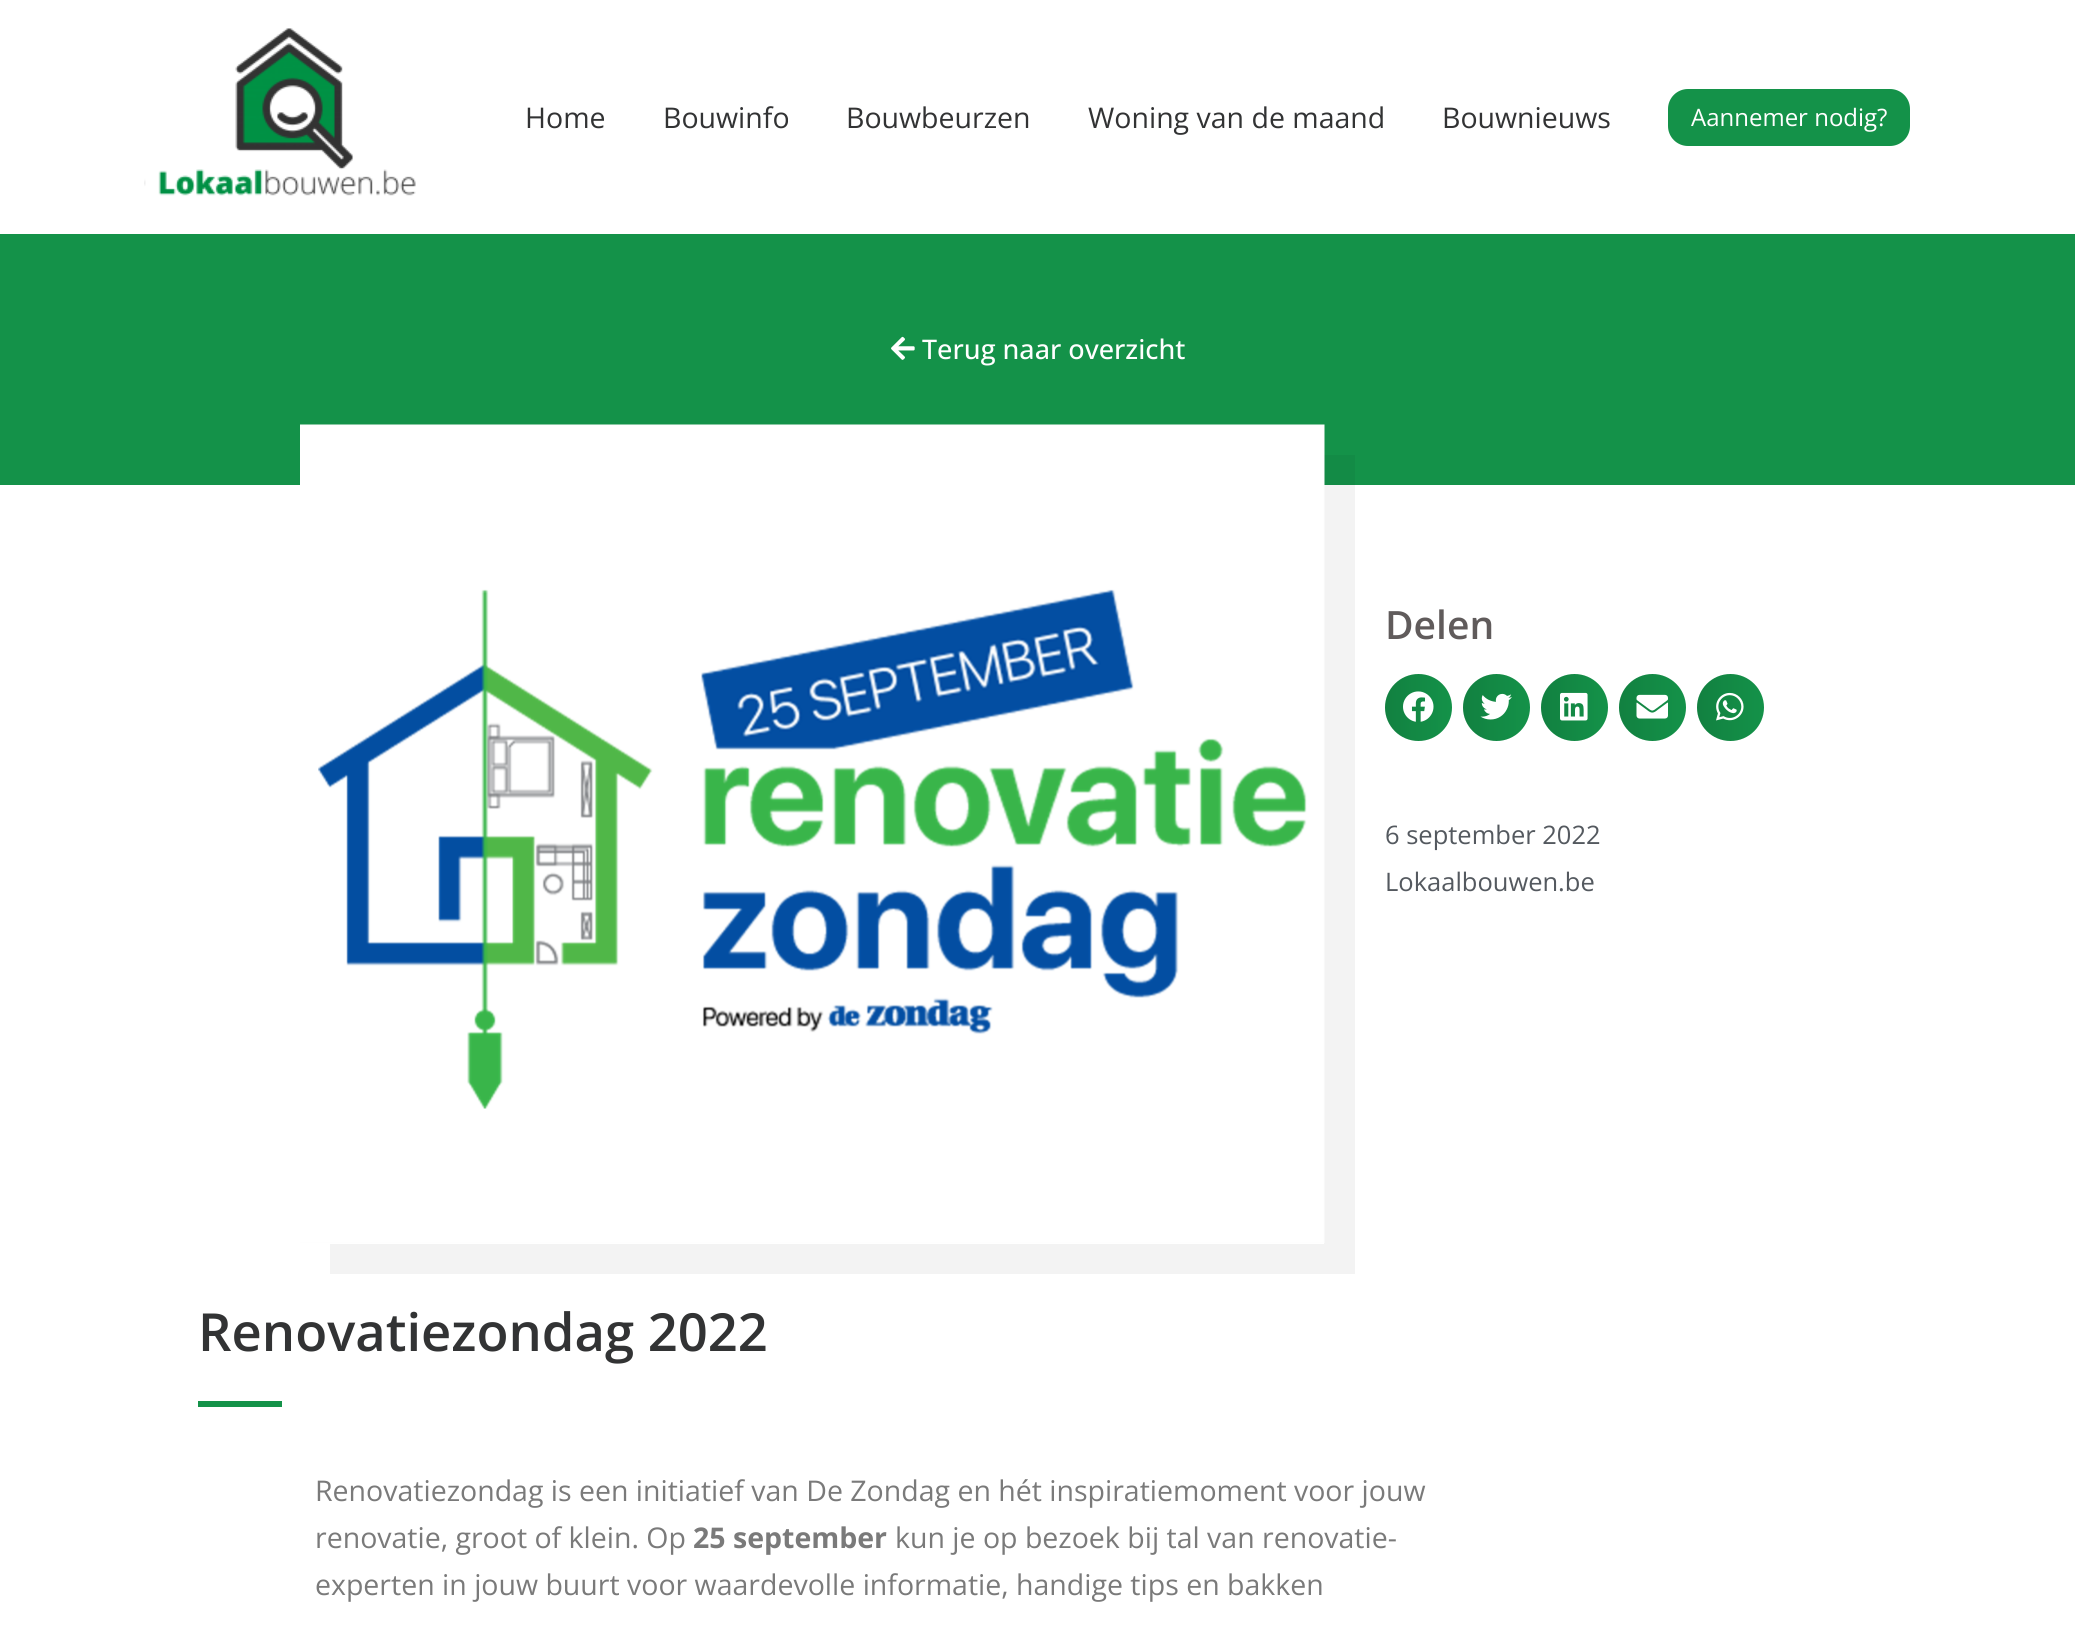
import math
import cairo


def use_color(cr, r, g, b):
  cr.set_source_rgb(r / 255, g / 255, b / 255)

def text(cr, x, y, s, family, size, color, bold=False, italic=False):
  cr.select_font_face(family, cairo.FONT_SLANT_ITALIC if italic else cairo.FONT_SLANT_NORMAL, cairo.FONT_WEIGHT_BOLD if bold else cairo.FONT_WEIGHT_NORMAL)
  cr.set_font_size(size)
  use_color(cr, *color)
  cr.move_to(x, y)
  cr.show_text(s)

def box(cr, x, y, w, h, *color):
  use_color(cr, *color)
  cr.rectangle(x, y, w, h)
  cr.fill()

def round_rect(cr, x, y, w, h, r):
  cr.new_sub_path()
  for i, (u, v) in enumerate([(x + w - r, y + h - r), (x + r, y + h - r), (x + r, y + r), (x + w - r, y + r)]):
    cr.arc(u, v, r, i * math.pi / 2, (i + 1) * math.pi / 2)
  cr.close_path()

def picture(cr, path, x, y, w, h):
  cr.save()
  cr.set_source_surface(cairo.ImageSurface.create_from_png(path), x, y)
  cr.rectangle(x, y, w, h)
  cr.fill()
  cr.restore()

def draw(cr):
  use_color(cr, 255, 255, 255)
  cr.paint()
  picture(cr, "img_01.png", 144, 28, 272, 168)
  use_color(cr, 20, 146, 73)
  round_rect(cr, 1668, 89, 242, 57, 20)
  cr.fill()
  box(cr, 0, 234, 2075, 251, 20, 146, 73)
  picture(cr, "img_02.png", 891, 336, 24, 24)
  cr.set_source_rgba(0, 0, 0, 0.05)
  cr.new_path()
  cr.move_to(330, 1244)
  cr.line_to(330, 1274)
  cr.line_to(1355, 1274)
  cr.line_to(1355, 455)
  cr.line_to(1324, 455)
  cr.line_to(1324, 1244)
  cr.close_path()
  cr.fill()
  picture(cr, "img_03.png", 300, 424, 1025, 819)
  use_color(cr, 20, 146, 73)
  cr.arc(1418.5, 707.5, 33.5, 0, 2 * math.pi)
  cr.fill()
  gradient = cairo.LinearGradient(1385, 707, 1452, 707)
  gradient.add_color_stop_rgba(0, 0, 0, 0, 0.12)
  gradient.add_color_stop_rgba(1, 0, 0, 0, 0)
  cr.set_source(gradient)
  cr.arc(1418.5, 707.5, 33.5, 0, 2 * math.pi)
  cr.fill()
  picture(cr, "img_04.png", 1403, 691, 31, 31)
  use_color(cr, 20, 146, 73)
  cr.arc(1496.5, 707.5, 33.5, 0, 2 * math.pi)
  cr.fill()
  gradient = cairo.LinearGradient(1463, 707, 1530, 707)
  gradient.add_color_stop_rgba(0, 0, 0, 0, 0.12)
  gradient.add_color_stop_rgba(1, 0, 0, 0, 0)
  cr.set_source(gradient)
  cr.arc(1496.5, 707.5, 33.5, 0, 2 * math.pi)
  cr.fill()
  picture(cr, "img_05.png", 1480, 693, 32, 27)
  use_color(cr, 20, 146, 73)
  cr.arc(1574.5, 707.5, 33.5, 0, 2 * math.pi)
  cr.fill()
  gradient = cairo.LinearGradient(1541, 707, 1608, 707)
  gradient.add_color_stop_rgba(0, 0, 0, 0, 0.12)
  gradient.add_color_stop_rgba(1, 0, 0, 0, 0)
  cr.set_source(gradient)
  cr.arc(1574.5, 707.5, 33.5, 0, 2 * math.pi)
  cr.fill()
  picture(cr, "img_06.png", 1560, 692, 28, 29)
  use_color(cr, 20, 146, 73)
  cr.arc(1652.5, 707.5, 33.5, 0, 2 * math.pi)
  cr.fill()
  gradient = cairo.LinearGradient(1619, 707, 1686, 707)
  gradient.add_color_stop_rgba(0, 0, 0, 0, 0.12)
  gradient.add_color_stop_rgba(1, 0, 0, 0, 0)
  cr.set_source(gradient)
  cr.arc(1652.5, 707.5, 33.5, 0, 2 * math.pi)
  cr.fill()
  picture(cr, "img_07.png", 1636, 694, 32, 25)
  use_color(cr, 20, 146, 73)
  cr.arc(1730.5, 707.5, 33.5, 0, 2 * math.pi)
  cr.fill()
  gradient = cairo.LinearGradient(1697, 707, 1764, 707)
  gradient.add_color_stop_rgba(0, 0, 0, 0, 0.12)
  gradient.add_color_stop_rgba(1, 0, 0, 0, 0)
  cr.set_source(gradient)
  cr.arc(1730.5, 707.5, 33.5, 0, 2 * math.pi)
  cr.fill()
  picture(cr, "img_08.png", 1716, 692, 28, 29)
  box(cr, 198, 1401, 84, 6, 20, 146, 73)
  text(cr, 525, 128, "Home", "Open Sans", 28.5, (50, 51, 52))
  text(cr, 663, 128, "Bouwinfo", "Open Sans", 28.5, (50, 51, 52))
  text(cr, 846, 128, "Bouwbeurzen", "Open Sans", 28.5, (50, 51, 52))
  text(cr, 1088, 128, "Woning van de maand", "Open Sans", 28.5, (50, 51, 52))
  text(cr, 1442, 128, "Bouwnieuws", "Open Sans", 28.5, (50, 51, 52))
  text(cr, 1691, 126, "Aannemer nodig?", "Open Sans", 24, (255, 255, 255))
  text(cr, 922, 359, "Terug naar overzicht", "Open Sans Medium", 27, (255, 255, 255))
  text(cr, 1385, 639, "Delen", "Open Sans SemiBold", 39, (96, 91, 91))
  text(cr, 1385, 844, "6 september 2022", "Open Sans", 25.5, (84, 89, 95))
  text(cr, 1385, 891, "Lokaalbouwen.be", "Open Sans", 25.5, (84, 89, 95))
  text(cr, 198, 1351, "Renovatiezondag 2022", "Open Sans SemiBold", 52.5, (50, 51, 52))
  text(cr, 315, 1501, "Renovatiezondag is een initiatief van De Zondag en hét inspiratiemoment voor jouw", "Open Sans", 28.5, (122, 122, 122))
  text(cr, 315, 1548, "renovatie, groot of klein. Op", "Open Sans", 28.5, (122, 122, 122))
  text(cr, 693, 1548, "25 september", "Open Sans", 28.5, (122, 122, 122), bold=True)
  text(cr, 895, 1548, "kun je op bezoek bij tal van renovatie-", "Open Sans", 28.5, (122, 122, 122))
  text(cr, 315, 1595, "experten in jouw buurt voor waardevolle informatie, handige tips en bakken", "Open Sans", 28.5, (122, 122, 122))


surface = cairo.ImageSurface(cairo.FORMAT_RGB24, 2075, 1628)
cr = cairo.Context(surface)
options = cairo.FontOptions()
options.set_hint_metrics(cairo.HINT_METRICS_OFF)
options.set_hint_style(cairo.HINT_STYLE_NONE)
cr.set_font_options(options)
cr.set_miter_limit(4)
draw(cr)
surface.write_to_png("out.png")
